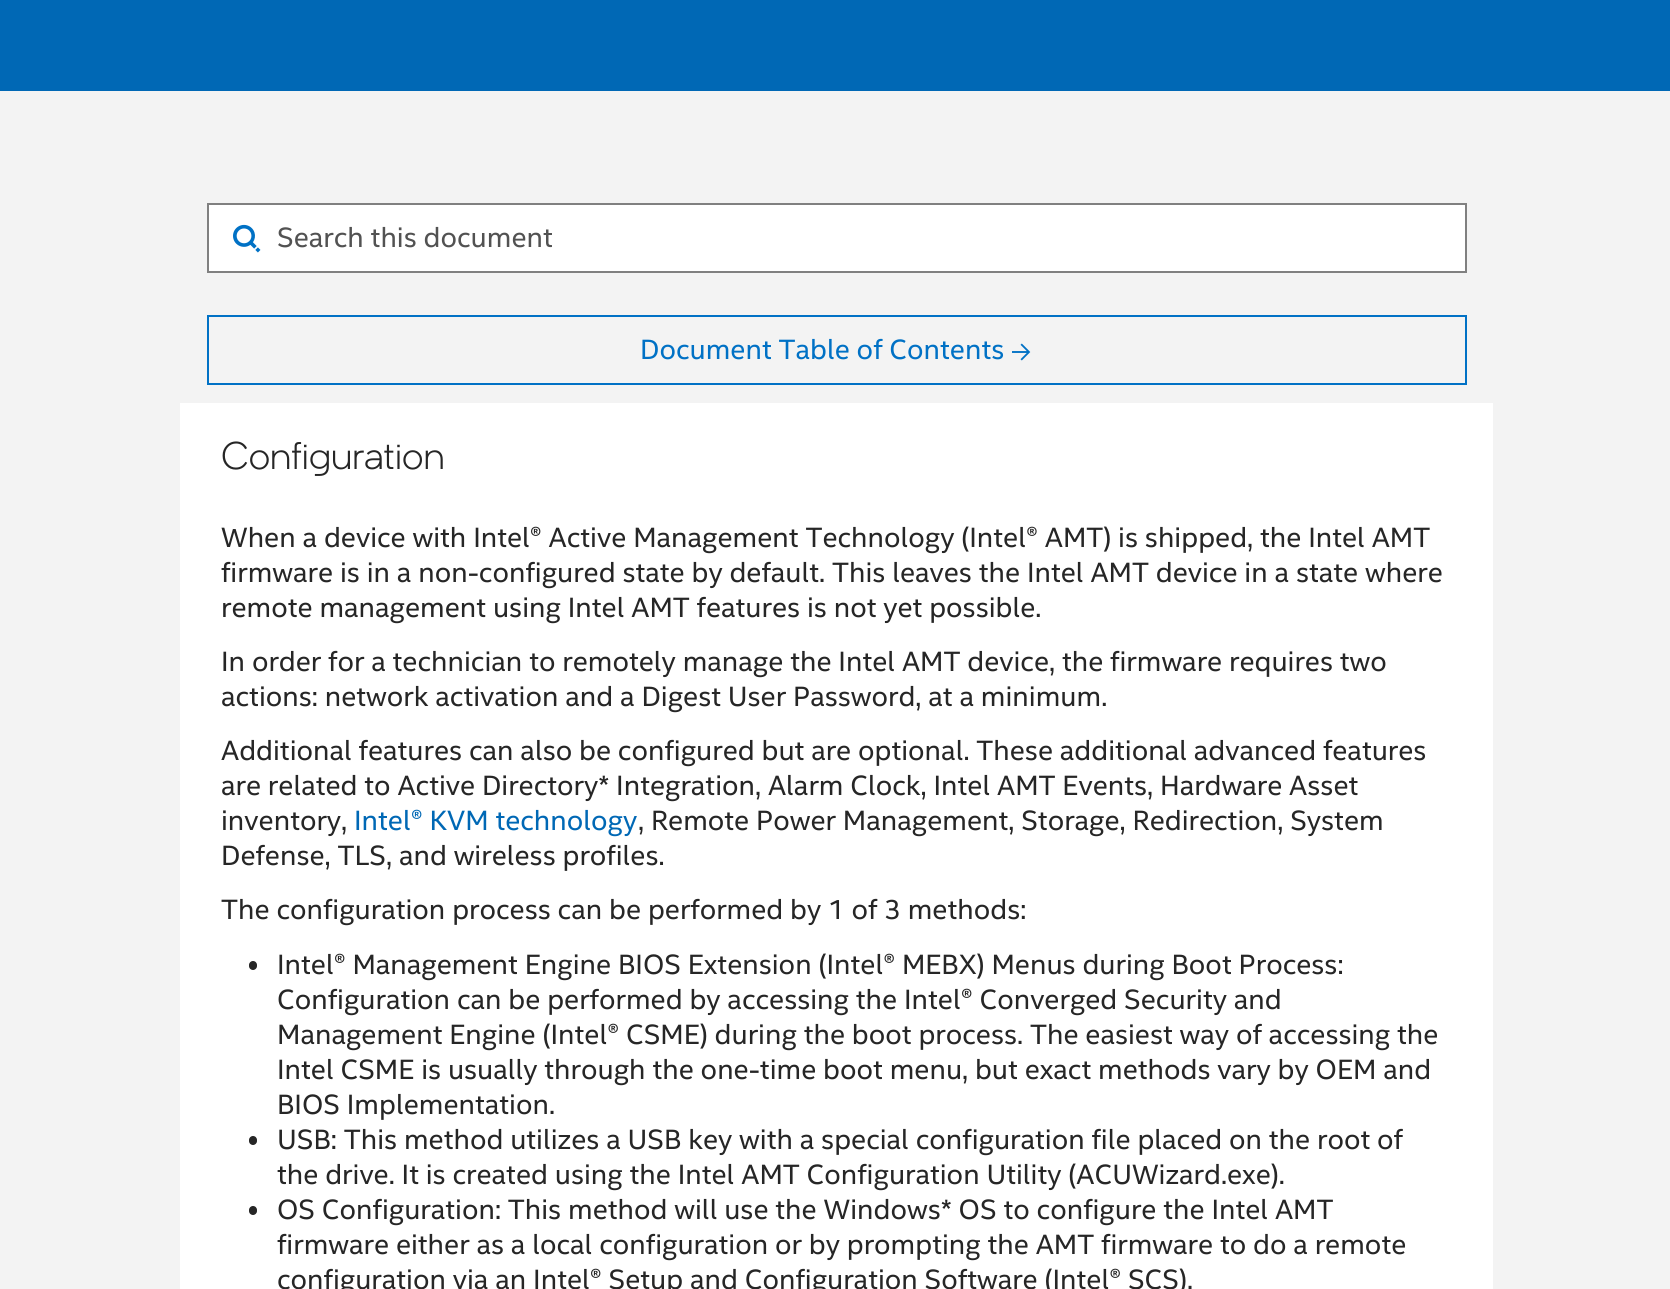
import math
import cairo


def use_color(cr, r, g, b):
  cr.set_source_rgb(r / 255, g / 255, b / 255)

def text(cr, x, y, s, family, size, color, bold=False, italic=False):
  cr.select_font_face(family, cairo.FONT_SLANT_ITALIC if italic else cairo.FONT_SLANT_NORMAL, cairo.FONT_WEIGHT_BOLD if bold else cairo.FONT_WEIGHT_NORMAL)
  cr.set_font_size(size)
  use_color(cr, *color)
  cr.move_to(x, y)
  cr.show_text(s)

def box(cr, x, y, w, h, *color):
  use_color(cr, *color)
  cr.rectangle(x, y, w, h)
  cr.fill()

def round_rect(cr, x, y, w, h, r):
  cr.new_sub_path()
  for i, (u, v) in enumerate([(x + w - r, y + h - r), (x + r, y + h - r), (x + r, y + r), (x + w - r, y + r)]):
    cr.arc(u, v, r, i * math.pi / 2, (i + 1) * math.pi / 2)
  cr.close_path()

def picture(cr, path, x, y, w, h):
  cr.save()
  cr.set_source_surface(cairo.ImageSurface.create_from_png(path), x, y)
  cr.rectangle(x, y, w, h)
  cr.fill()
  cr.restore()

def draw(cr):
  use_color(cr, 0, 104, 181)
  cr.paint()
  box(cr, 0, 91, 1670, 1198, 243, 243, 243)
  use_color(cr, 255, 255, 255)
  cr.rectangle(208, 204, 1258, 68)
  cr.fill_preserve()
  use_color(cr, 128, 128, 128)
  cr.stroke()
  picture(cr, "img_01.png", 233, 224, 28, 29)
  cr.rectangle(208, 316, 1258, 68)
  use_color(cr, 0, 113, 197)
  cr.stroke()
  picture(cr, "img_02.png", 1012, 343, 19, 18)
  box(cr, 180, 403, 1313, 886, 255, 255, 255)
  use_color(cr, 38, 38, 38)
  round_rect(cr, 249, 961, 8, 9, 4)
  cr.fill()
  round_rect(cr, 249, 1136, 8, 9, 4)
  cr.fill()
  round_rect(cr, 249, 1206, 8, 9, 4)
  cr.fill()
  text(cr, 277, 247, "Search this document", "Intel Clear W", 28, (82, 82, 82))
  text(cr, 640, 359, "Document Table of Contents", "Intel Clear W", 28, (0, 113, 197))
  text(cr, 221, 469, "Configuration", "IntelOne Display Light", 38.5, (38, 38, 38))
  text(cr, 221, 547, "When a device with Intel® Active Management Technology (Intel® AMT) is shipped, the Intel AMT", "Intel Clear W", 28, (38, 38, 38))
  text(cr, 221, 582, "firmware is in a non-configured state by default. This leaves the Intel AMT device in a state where", "Intel Clear W", 28, (38, 38, 38))
  text(cr, 221, 617, "remote management using Intel AMT features is not yet possible.", "Intel Clear W", 28, (38, 38, 38))
  text(cr, 221, 671, "In order for a technician to remotely manage the Intel AMT device, the firmware requires two", "Intel Clear W", 28, (38, 38, 38))
  text(cr, 221, 706, "actions: network activation and a Digest User Password, at a minimum.", "Intel Clear W", 28, (38, 38, 38))
  text(cr, 221, 760, "Additional features can also be configured but are optional. These additional advanced features", "Intel Clear W", 28, (38, 38, 38))
  text(cr, 221, 795, "are related to Active Directory* Integration, Alarm Clock, Intel AMT Events, Hardware Asset", "Intel Clear W", 28, (38, 38, 38))
  text(cr, 221, 830, "inventory,", "Intel Clear W", 28, (38, 38, 38))
  text(cr, 354, 830, "Intel® KVM technology", "Intel Clear W", 28, (0, 104, 181))
  text(cr, 638, 830, ", Remote Power Management, Storage, Redirection, System", "Intel Clear W", 28, (38, 38, 38))
  text(cr, 221, 865, "Defense, TLS, and wireless profiles.", "Intel Clear W", 28, (38, 38, 38))
  text(cr, 221, 919, "The configuration process can be performed by 1 of 3 methods:", "Intel Clear W", 28, (38, 38, 38))
  text(cr, 277, 974, "Intel® Management Engine BIOS Extension (Intel® MEBX) Menus during Boot Process:", "Intel Clear W", 28, (38, 38, 38))
  text(cr, 277, 1009, "Configuration can be performed by accessing the Intel® Converged Security and", "Intel Clear W", 28, (38, 38, 38))
  text(cr, 277, 1044, "Management Engine (Intel® CSME) during the boot process. The easiest way of accessing the", "Intel Clear W", 28, (38, 38, 38))
  text(cr, 277, 1079, "Intel CSME is usually through the one-time boot menu, but exact methods vary by OEM and", "Intel Clear W", 28, (38, 38, 38))
  text(cr, 277, 1114, "BIOS Implementation.", "Intel Clear W", 28, (38, 38, 38))
  text(cr, 277, 1149, "USB: This method utilizes a USB key with a special configuration file placed on the root of", "Intel Clear W", 28, (38, 38, 38))
  text(cr, 277, 1184, "the drive. It is created using the Intel AMT Configuration Utility (ACUWizard.exe).", "Intel Clear W", 28, (38, 38, 38))
  text(cr, 277, 1219, "OS Configuration: This method will use the Windows* OS to configure the Intel AMT", "Intel Clear W", 28, (38, 38, 38))
  text(cr, 277, 1254, "firmware either as a local configuration or by prompting the AMT firmware to do a remote", "Intel Clear W", 28, (38, 38, 38))
  text(cr, 277, 1289, "configuration via an Intel® Setup and Configuration Software (Intel® SCS).", "Intel Clear W", 28, (38, 38, 38))


surface = cairo.ImageSurface(cairo.FORMAT_RGB24, 1670, 1289)
cr = cairo.Context(surface)
options = cairo.FontOptions()
options.set_hint_metrics(cairo.HINT_METRICS_OFF)
options.set_hint_style(cairo.HINT_STYLE_NONE)
cr.set_font_options(options)
cr.set_miter_limit(4)
draw(cr)
surface.write_to_png("out.png")
